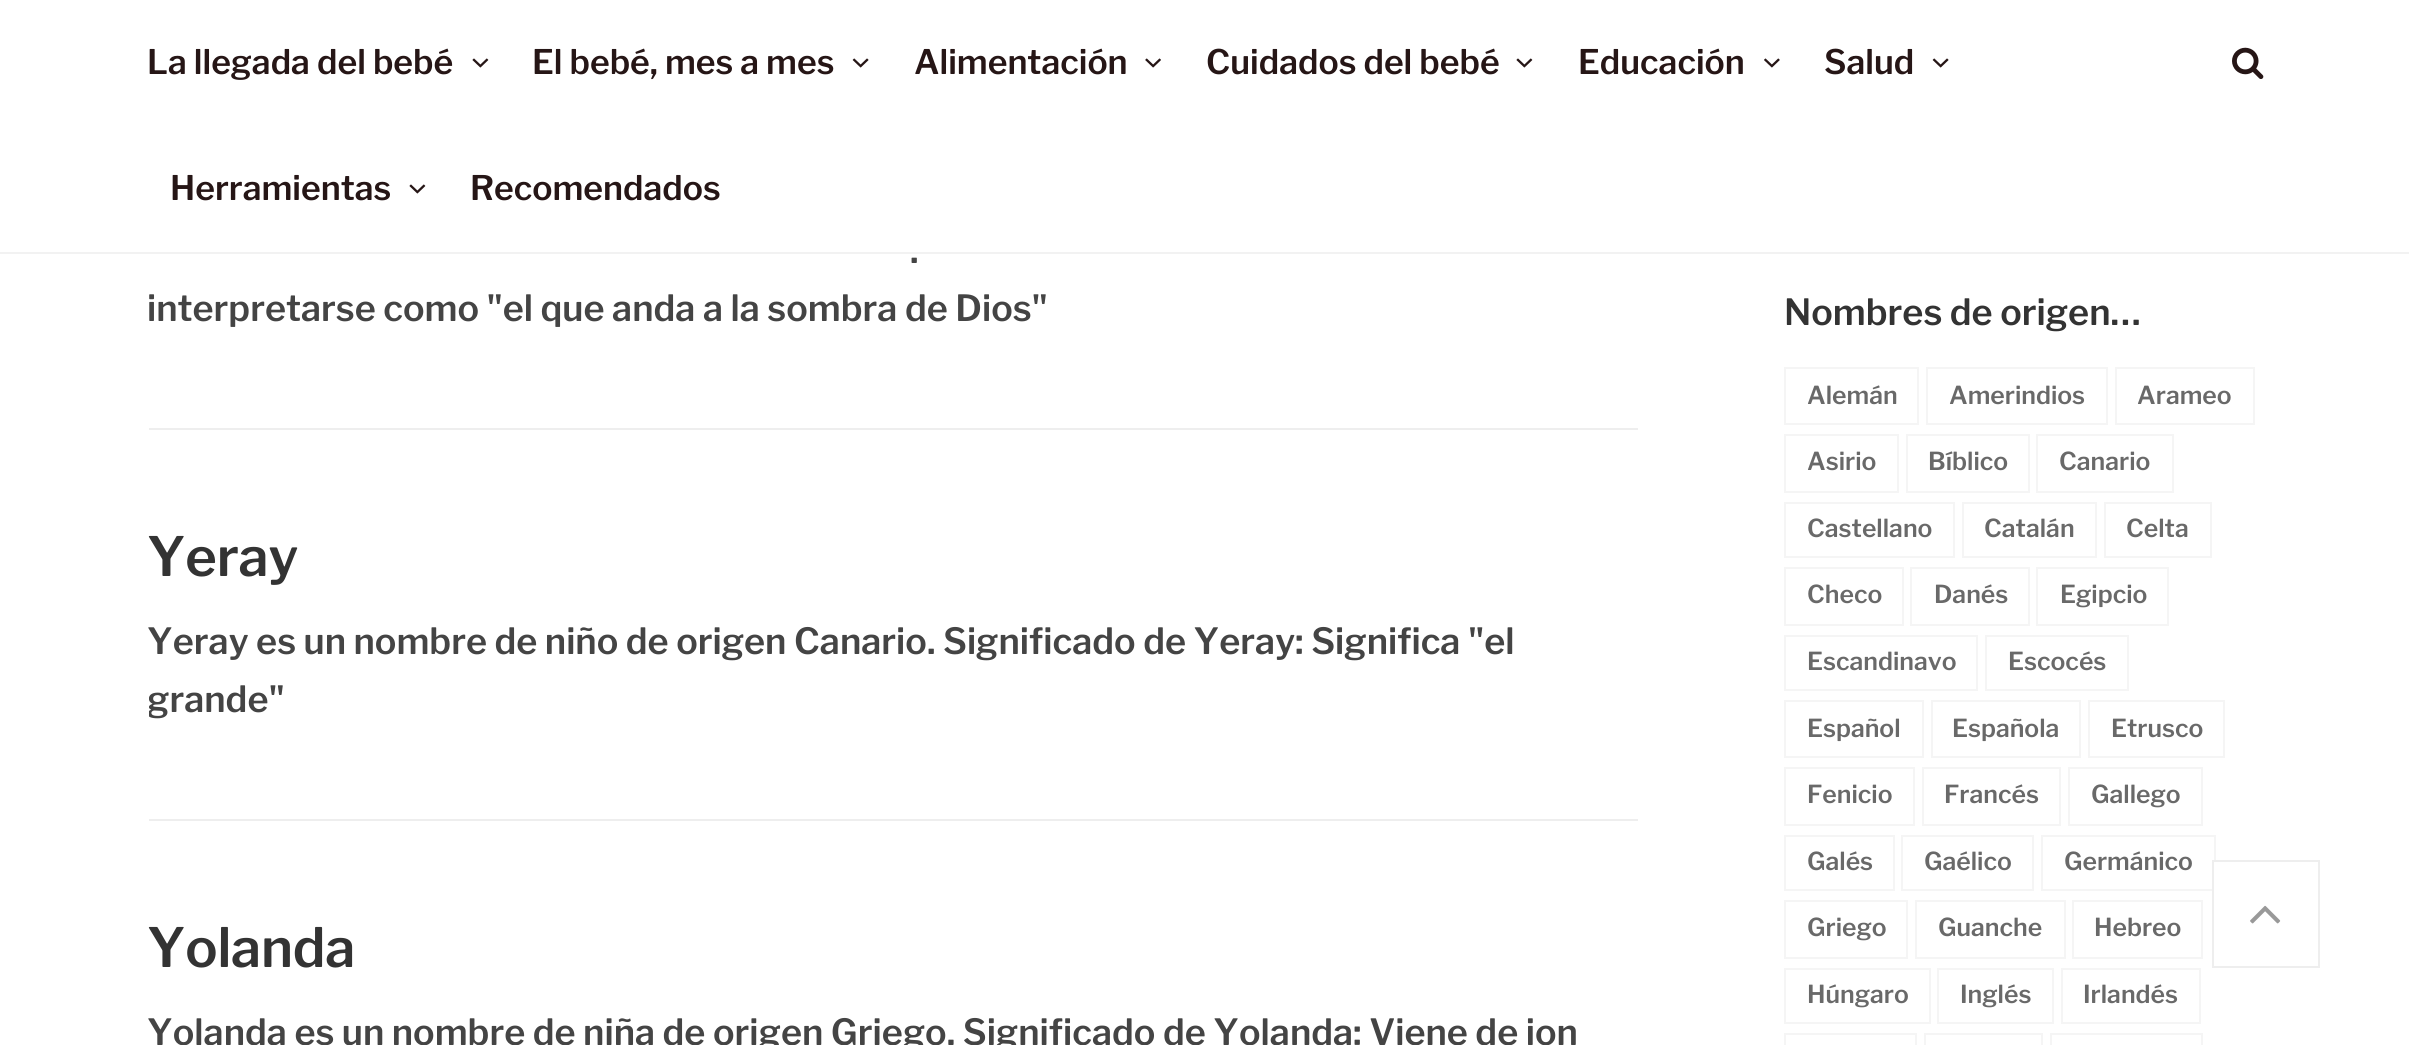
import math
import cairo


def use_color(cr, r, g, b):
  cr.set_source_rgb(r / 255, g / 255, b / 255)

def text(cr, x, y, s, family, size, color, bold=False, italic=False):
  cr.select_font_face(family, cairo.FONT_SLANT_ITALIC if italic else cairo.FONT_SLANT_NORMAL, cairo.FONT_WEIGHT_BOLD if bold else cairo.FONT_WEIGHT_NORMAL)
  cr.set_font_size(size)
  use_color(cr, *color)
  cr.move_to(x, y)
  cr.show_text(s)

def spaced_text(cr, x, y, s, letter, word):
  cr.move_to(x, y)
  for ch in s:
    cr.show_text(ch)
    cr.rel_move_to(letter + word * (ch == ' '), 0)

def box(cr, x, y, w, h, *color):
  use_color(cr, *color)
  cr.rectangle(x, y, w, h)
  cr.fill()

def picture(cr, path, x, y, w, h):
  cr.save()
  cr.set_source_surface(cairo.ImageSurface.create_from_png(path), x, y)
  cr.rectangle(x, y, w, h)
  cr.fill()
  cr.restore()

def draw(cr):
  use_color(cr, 255, 255, 255)
  cr.paint()
  box(cr, 0, 252, 2409, 2, 242, 242, 242)
  picture(cr, "img_01.png", 472, 58, 17, 10)
  picture(cr, "img_02.png", 852, 58, 17, 10)
  picture(cr, "img_03.png", 1145, 58, 16, 10)
  picture(cr, "img_01.png", 1516, 58, 17, 10)
  picture(cr, "img_04.png", 1764, 58, 16, 10)
  picture(cr, "img_02.png", 1932, 58, 17, 10)
  picture(cr, "img_01.png", 409, 184, 17, 10)
  picture(cr, "img_05.png", 2232, 47, 32, 32)
  box(cr, 149, 428, 1489, 2, 238, 238, 238)
  box(cr, 149, 819, 1489, 2, 238, 238, 238)
  cr.rectangle(1785, 368, 133, 56)
  use_color(cr, 245, 245, 245)
  cr.stroke()
  cr.rectangle(1927, 368, 180, 56)
  cr.stroke()
  cr.rectangle(2116, 368, 138, 56)
  cr.stroke()
  cr.rectangle(1785, 435, 113, 57)
  cr.stroke()
  cr.rectangle(1907, 435, 122, 57)
  cr.stroke()
  cr.rectangle(2037, 435, 136, 57)
  cr.stroke()
  cr.rectangle(1785, 503, 169, 54)
  cr.stroke()
  cr.rectangle(1963, 503, 133, 54)
  cr.stroke()
  cr.rectangle(2105, 503, 106, 54)
  cr.stroke()
  cr.rectangle(1785, 568, 118, 57)
  cr.stroke()
  cr.rectangle(1911, 568, 118, 57)
  cr.stroke()
  cr.rectangle(2037, 568, 131, 57)
  cr.stroke()
  cr.rectangle(1785, 636, 192, 54)
  cr.stroke()
  cr.rectangle(1986, 636, 142, 54)
  cr.stroke()
  cr.rectangle(1785, 701, 138, 56)
  cr.stroke()
  cr.rectangle(1932, 701, 148, 56)
  cr.stroke()
  cr.rectangle(2089, 701, 135, 56)
  cr.stroke()
  cr.rectangle(1785, 768, 129, 57)
  cr.stroke()
  cr.rectangle(1923, 768, 137, 57)
  cr.stroke()
  cr.rectangle(2069, 768, 133, 57)
  cr.stroke()
  cr.rectangle(1785, 836, 109, 54)
  cr.stroke()
  cr.rectangle(1902, 836, 131, 54)
  cr.stroke()
  cr.rectangle(2042, 836, 173, 54)
  cr.stroke()
  cr.rectangle(1785, 901, 122, 57)
  cr.stroke()
  cr.rectangle(1916, 901, 149, 57)
  cr.stroke()
  cr.rectangle(2073, 901, 129, 57)
  cr.stroke()
  cr.rectangle(1785, 969, 145, 54)
  cr.stroke()
  cr.rectangle(1938, 969, 115, 54)
  cr.stroke()
  cr.rectangle(2062, 969, 138, 54)
  cr.stroke()
  cr.rectangle(1785, 1034, 131, 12)
  cr.stroke()
  cr.rectangle(1925, 1034, 117, 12)
  cr.stroke()
  cr.rectangle(2051, 1034, 151, 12)
  cr.stroke()
  box(cr, 2214, 862, 2, 29, 255, 255, 255)
  cr.rectangle(2213, 861, 106, 106)
  use_color(cr, 238, 238, 238)
  cr.stroke()
  picture(cr, "img_06.png", 2250, 905, 31, 19)
  text(cr, 147, 74, "La llegada del bebé", "Libre Franklin SemiBold", 33.75, (38, 22, 22))
  text(cr, 532, 74, "El bebé, mes a mes", "Libre Franklin SemiBold", 33.75, (38, 22, 22))
  text(cr, 914, 74, "Alimentación", "Libre Franklin SemiBold", 33.75, (38, 22, 22))
  text(cr, 1206, 74, "Cuidados del bebé", "Libre Franklin SemiBold", 33.75, (38, 22, 22))
  text(cr, 1578, 74, "Educación", "Libre Franklin SemiBold", 33.75, (38, 22, 22))
  text(cr, 1824, 74, "Salud", "Libre Franklin SemiBold", 33.75, (38, 22, 22))
  text(cr, 170, 200, "Herramientas", "Libre Franklin SemiBold", 33.75, (38, 22, 22))
  text(cr, 470, 200, "Recomendados", "Libre Franklin SemiBold", 33.75, (38, 22, 22))
  text(cr, 910, 263, ".", "Libre Franklin SemiBold", 36, (68, 68, 68))
  text(cr, 147, 321, "interpretarse como \"el que anda a la sombra de Dios\"", "Libre Franklin SemiBold", 36, (68, 68, 68))
  cr.set_font_size(54)
  use_color(cr, 51, 51, 51)
  spaced_text(cr, 147, 576, "Yeray", -0.25, 0)
  text(cr, 147, 654, "Yeray es un nombre de niño de origen Canario. Significado de Yeray: Significa \"el", "Libre Franklin SemiBold", 36, (68, 68, 68))
  cr.save()
  cr.rectangle(149, 520, 1489, 299)
  cr.clip()
  text(cr, 147, 712, "grande\"", "Libre Franklin SemiBold", 36, (68, 68, 68))
  cr.restore()
  cr.set_font_size(54)
  use_color(cr, 51, 51, 51)
  spaced_text(cr, 147, 967, "Yolanda", -0.25, 0)
  text(cr, 147, 1045, "Yolanda es un nombre de niña de origen Griego. Significado de Yolanda: Viene de ion", "Libre Franklin SemiBold", 36, (68, 68, 68))
  text(cr, 1784, 325, "Nombres de origen…", "Libre Franklin SemiBold", 36, (51, 51, 51))
  text(cr, 1807, 404, "Alemán", "Libre Franklin SemiBold", 24.75, (105, 105, 105))
  text(cr, 1949, 404, "Amerindios", "Libre Franklin SemiBold", 24.75, (105, 105, 105))
  text(cr, 2137, 404, "Arameo", "Libre Franklin SemiBold", 24.75, (105, 105, 105))
  text(cr, 1807, 470, "Asirio", "Libre Franklin SemiBold", 24.75, (105, 105, 105))
  text(cr, 1928, 470, "Bíblico", "Libre Franklin SemiBold", 24.75, (105, 105, 105))
  text(cr, 2059, 470, "Canario", "Libre Franklin SemiBold", 24.75, (105, 105, 105))
  text(cr, 1807, 537, "Castellano", "Libre Franklin SemiBold", 24.75, (105, 105, 105))
  text(cr, 1984, 537, "Catalán", "Libre Franklin SemiBold", 24.75, (105, 105, 105))
  text(cr, 2126, 537, "Celta", "Libre Franklin SemiBold", 24.75, (105, 105, 105))
  text(cr, 1807, 603, "Checo", "Libre Franklin SemiBold", 24.75, (105, 105, 105))
  text(cr, 1934, 603, "Danés", "Libre Franklin SemiBold", 24.75, (105, 105, 105))
  text(cr, 2060, 603, "Egipcio", "Libre Franklin SemiBold", 24.75, (105, 105, 105))
  text(cr, 1807, 670, "Escandinavo", "Libre Franklin SemiBold", 24.75, (105, 105, 105))
  text(cr, 2008, 670, "Escocés", "Libre Franklin SemiBold", 24.75, (105, 105, 105))
  text(cr, 1807, 737, "Español", "Libre Franklin SemiBold", 24.75, (105, 105, 105))
  text(cr, 1952, 737, "Española", "Libre Franklin SemiBold", 24.75, (105, 105, 105))
  text(cr, 2111, 737, "Etrusco", "Libre Franklin SemiBold", 24.75, (105, 105, 105))
  text(cr, 1807, 803, "Fenicio", "Libre Franklin SemiBold", 24.75, (105, 105, 105))
  text(cr, 1944, 803, "Francés", "Libre Franklin SemiBold", 24.75, (105, 105, 105))
  text(cr, 2091, 803, "Gallego", "Libre Franklin SemiBold", 24.75, (105, 105, 105))
  text(cr, 1807, 870, "Galés", "Libre Franklin SemiBold", 24.75, (105, 105, 105))
  text(cr, 1924, 870, "Gaélico", "Libre Franklin SemiBold", 24.75, (105, 105, 105))
  text(cr, 2064, 870, "Germánico", "Libre Franklin SemiBold", 24.75, (105, 105, 105))
  text(cr, 1807, 936, "Griego", "Libre Franklin SemiBold", 24.75, (105, 105, 105))
  text(cr, 1938, 936, "Guanche", "Libre Franklin SemiBold", 24.75, (105, 105, 105))
  text(cr, 2094, 936, "Hebreo", "Libre Franklin SemiBold", 24.75, (105, 105, 105))
  text(cr, 1807, 1003, "Húngaro", "Libre Franklin SemiBold", 24.75, (105, 105, 105))
  text(cr, 1960, 1003, "Inglés", "Libre Franklin SemiBold", 24.75, (105, 105, 105))
  text(cr, 2083, 1003, "Irlandés", "Libre Franklin SemiBold", 24.75, (105, 105, 105))


surface = cairo.ImageSurface(cairo.FORMAT_RGB24, 2409, 1045)
cr = cairo.Context(surface)
options = cairo.FontOptions()
options.set_hint_metrics(cairo.HINT_METRICS_OFF)
options.set_hint_style(cairo.HINT_STYLE_NONE)
cr.set_font_options(options)
cr.set_miter_limit(4)
draw(cr)
surface.write_to_png("out.png")
